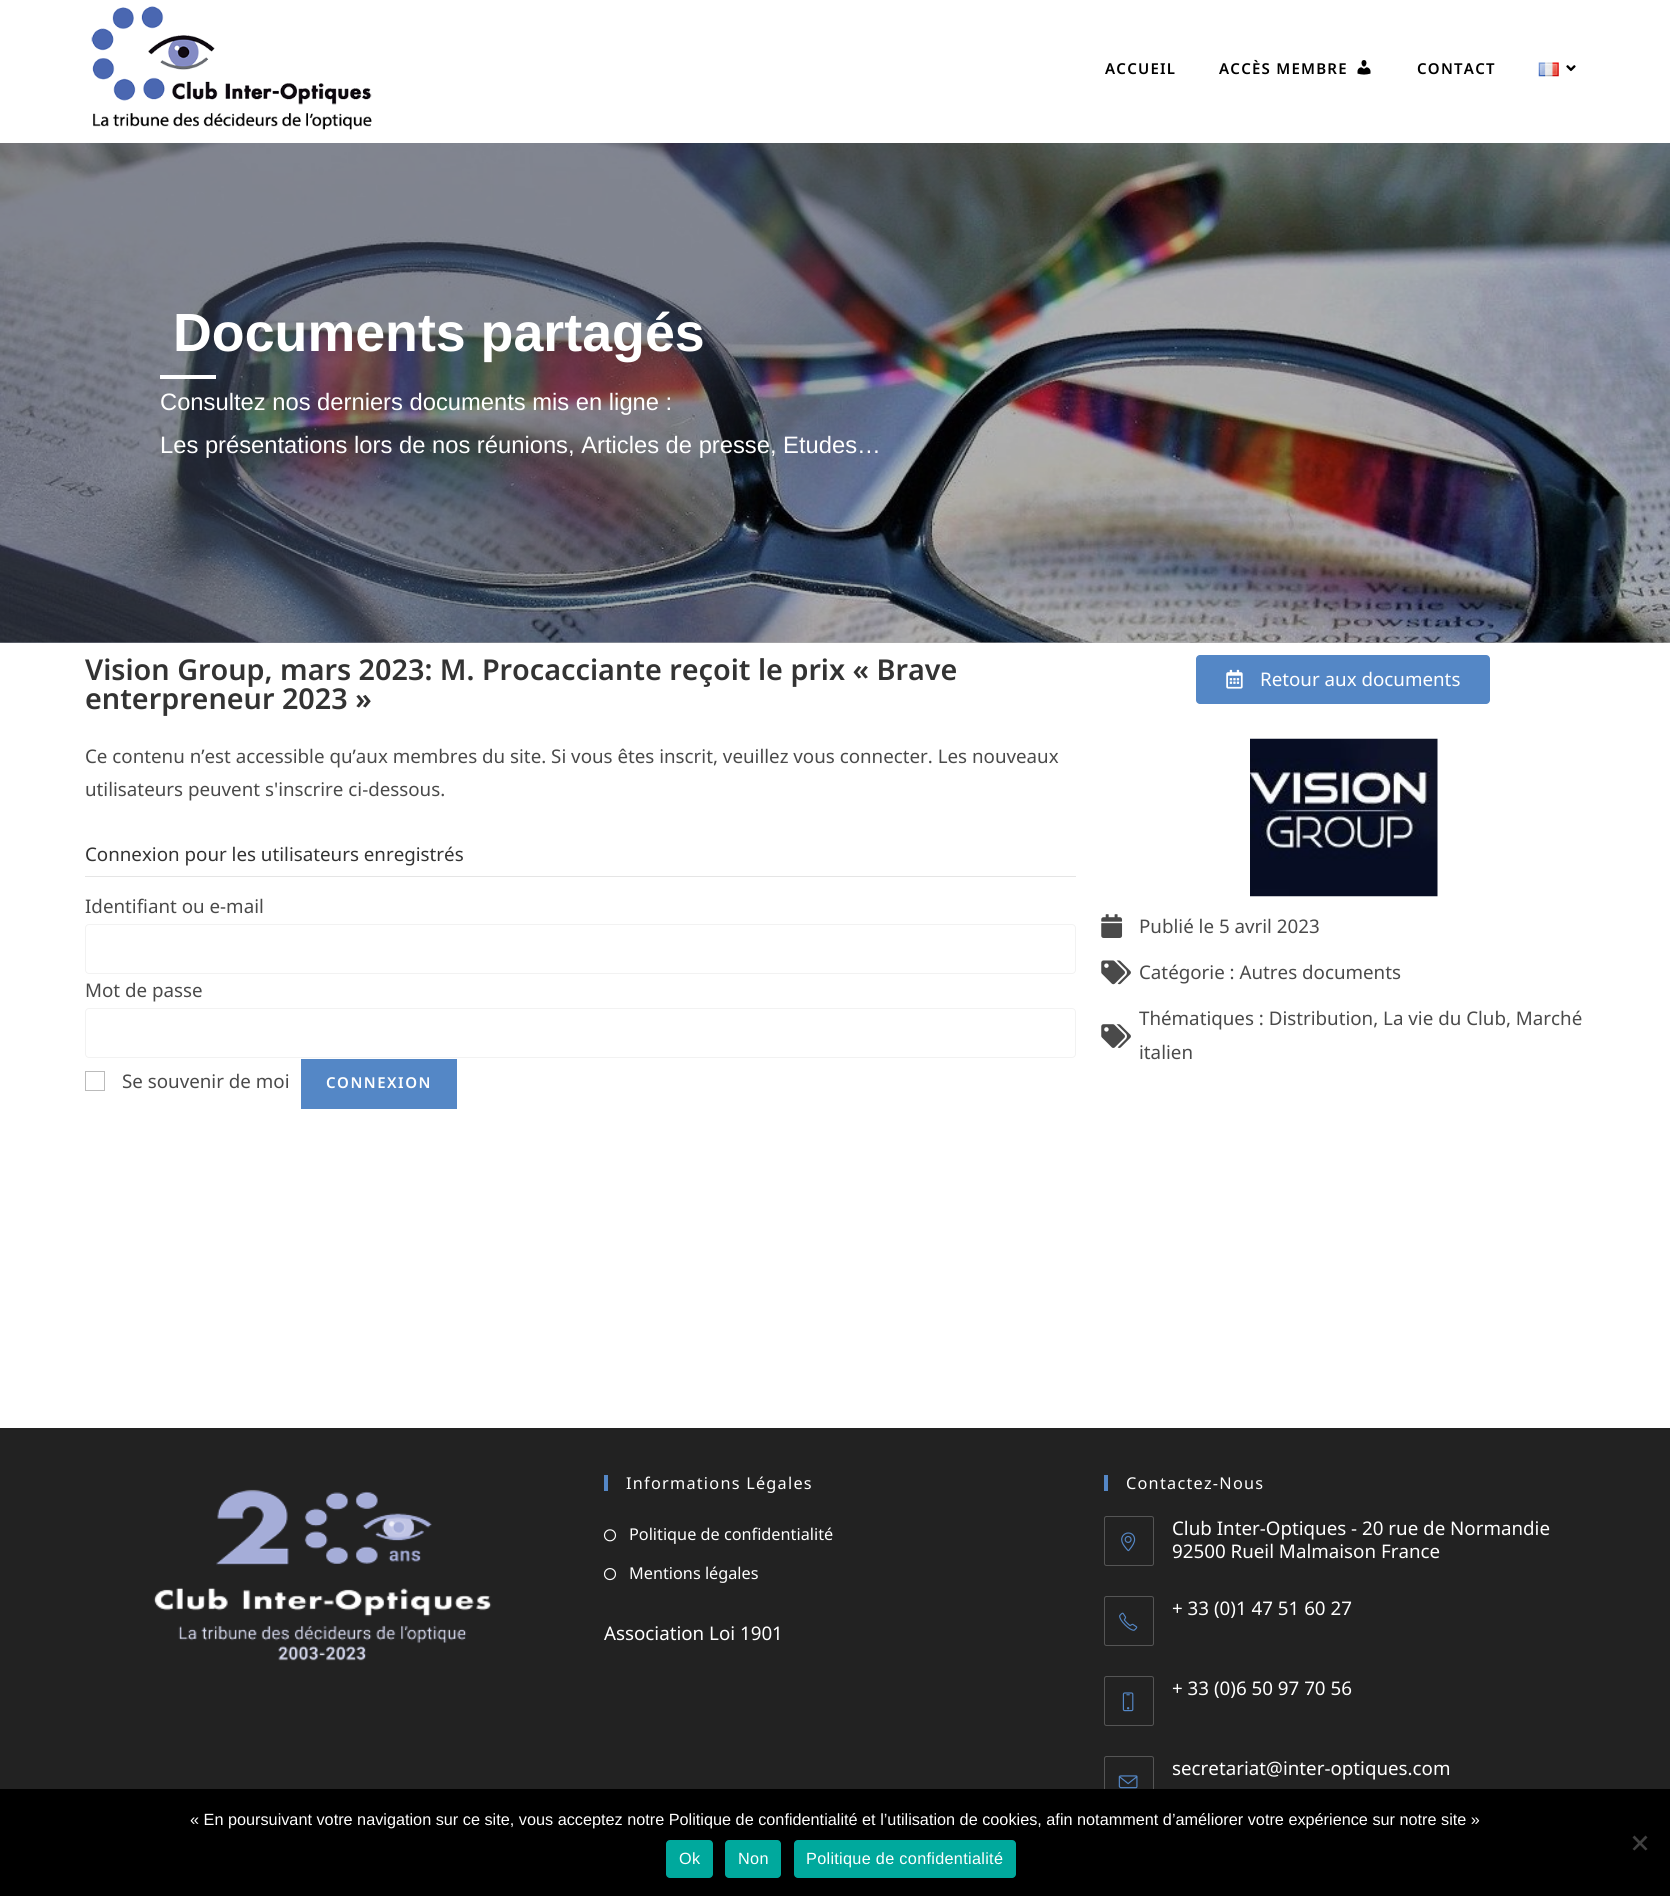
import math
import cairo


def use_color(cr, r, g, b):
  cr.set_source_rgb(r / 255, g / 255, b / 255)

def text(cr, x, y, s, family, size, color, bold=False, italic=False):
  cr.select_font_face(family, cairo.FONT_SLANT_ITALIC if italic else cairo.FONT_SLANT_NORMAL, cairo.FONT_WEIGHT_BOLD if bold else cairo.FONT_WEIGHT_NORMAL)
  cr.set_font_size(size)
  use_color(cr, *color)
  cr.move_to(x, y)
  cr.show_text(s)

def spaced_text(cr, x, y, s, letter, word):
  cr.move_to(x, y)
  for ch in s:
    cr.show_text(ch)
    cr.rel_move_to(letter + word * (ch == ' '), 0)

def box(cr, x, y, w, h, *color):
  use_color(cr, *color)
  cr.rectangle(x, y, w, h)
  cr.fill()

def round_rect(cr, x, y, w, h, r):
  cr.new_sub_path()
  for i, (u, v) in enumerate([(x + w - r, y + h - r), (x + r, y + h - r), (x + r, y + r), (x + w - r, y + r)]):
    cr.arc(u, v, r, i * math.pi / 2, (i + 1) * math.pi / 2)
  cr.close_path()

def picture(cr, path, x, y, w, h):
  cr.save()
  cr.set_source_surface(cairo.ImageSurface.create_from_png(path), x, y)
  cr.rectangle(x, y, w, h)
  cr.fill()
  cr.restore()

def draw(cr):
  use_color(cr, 255, 255, 255)
  cr.paint()
  picture(cr, "img_01.png", 91, 6, 281, 124)
  picture(cr, "img_02.png", 1357, 60, 14, 15)
  picture(cr, "img_03.png", 1538, 62, 21, 15)
  picture(cr, "img_04.png", 1566, 65, 10, 7)
  picture(cr, "img_05.png", 0, 143, 1670, 500)
  gradient = cairo.LinearGradient(367, -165, 1303, 950)
  gradient.add_color_stop_rgba(0.41, 0.204, 0.231, 0.302, 0.61)
  gradient.add_color_stop_rgba(0.53, 0, 0, 0, 0.3)
  cr.set_source(gradient)
  cr.rectangle(0, 143, 1670, 500)
  cr.fill()
  box(cr, 160, 375, 56, 4, 255, 255, 255)
  use_color(cr, 84, 135, 198)
  round_rect(cr, 1196, 655, 294, 49, 4)
  cr.fill()
  picture(cr, "img_06.png", 1226, 669, 17, 20)
  box(cr, 85, 876, 991, 1, 229, 229, 229)
  round_rect(cr, 85.5, 924.5, 990, 49, 3.5)
  use_color(cr, 242, 242, 242)
  cr.set_line_width(1)
  cr.stroke()
  round_rect(cr, 85.5, 1008.5, 990, 49, 3.5)
  cr.stroke()
  cr.rectangle(85.5, 1071.5, 19, 19)
  use_color(cr, 187, 187, 187)
  cr.stroke()
  box(cr, 301, 1059, 156, 50, 84, 135, 198)
  picture(cr, "img_07.png", 1250, 738, 188, 159)
  picture(cr, "img_08.png", 1101, 914, 22, 24)
  picture(cr, "img_09.png", 1101, 960, 30, 25)
  picture(cr, "img_10.png", 1101, 1024, 30, 24)
  box(cr, 0, 1428, 1670, 361, 34, 34, 34)
  picture(cr, "img_11.png", 153, 1489, 339, 172)
  box(cr, 604, 1475, 4, 16, 84, 135, 198)
  picture(cr, "img_12.png", 603, 1529, 14, 13)
  picture(cr, "img_13.png", 604, 1568, 12, 13)
  box(cr, 1104, 1475, 4, 16, 84, 135, 198)
  round_rect(cr, 1104.5, 1516.5, 49, 49, 2)
  use_color(cr, 85, 85, 85)
  cr.stroke()
  picture(cr, "img_14.png", 1121, 1532, 15, 20)
  round_rect(cr, 1104.5, 1596.5, 49, 49, 2)
  cr.stroke()
  picture(cr, "img_15.png", 1119, 1612, 19, 19)
  round_rect(cr, 1104.5, 1676.5, 49, 49, 2)
  cr.stroke()
  picture(cr, "img_16.png", 1122, 1692, 12, 20)
  round_rect(cr, 1104.5, 1756.5, 49, 49, 2)
  cr.stroke()
  picture(cr, "img_17.png", 1118, 1775, 20, 14)
  box(cr, 0, 1789, 1670, 107, 0, 0, 0)
  use_color(cr, 64, 64, 64)
  cr.new_path()
  cr.move_to(1645.5, 1835.5)
  cr.line_to(1647.5, 1837.5)
  cr.line_to(1634.5, 1850.5)
  cr.line_to(1632.5, 1849)
  cr.close_path()
  cr.fill()
  cr.new_path()
  cr.move_to(1632.5, 1837.5)
  cr.line_to(1634.5, 1835.5)
  cr.line_to(1647.5, 1849)
  cr.line_to(1645.5, 1850.5)
  cr.close_path()
  cr.fill()
  use_color(cr, 0, 169, 157)
  round_rect(cr, 666, 1840, 47, 38, 4)
  cr.fill()
  round_rect(cr, 725, 1840, 56, 38, 4)
  cr.fill()
  round_rect(cr, 794, 1840, 222, 38, 4)
  cr.fill()
  cr.select_font_face("Noto Sans SemiBold")
  cr.set_font_size(15)
  use_color(cr, 0, 0, 0)
  spaced_text(cr, 1105, 74, "ACCUEIL", 1.25, 0)
  spaced_text(cr, 1219, 74, "ACCÈS MEMBRE", 1.25, 0)
  spaced_text(cr, 1417, 74, "CONTACT", 1.25, 0)
  text(cr, 173, 351, "Documents partagés", "Liberation Sans", 53.75, (255, 255, 255), bold=True)
  text(cr, 160, 410, "Consultez nos derniers documents mis en ligne :", "Liberation Sans", 23.75, (255, 255, 255))
  text(cr, 160, 453, "Les présentations lors de nos réunions, Articles de presse, Etudes…", "Liberation Sans", 23.75, (255, 255, 255))
  text(cr, 85, 680, "Vision Group, mars 2023: M. Procacciante reçoit le prix « Brave", "Noto Sans SemiBold", 28.75, (51, 51, 51))
  text(cr, 85, 709, "enterpreneur 2023 »", "Noto Sans SemiBold", 28.75, (51, 51, 51))
  text(cr, 1260, 686, "Retour aux documents", "Noto Sans", 18.75, (255, 255, 255))
  text(cr, 85, 763, "Ce contenu n’est accessible qu’aux membres du site. Si vous êtes inscrit, veuillez vous connecter. Les nouveaux", "Noto Sans", 18.75, (74, 74, 74))
  text(cr, 85, 796, "utilisateurs peuvent s'inscrire ci-dessous.", "Noto Sans", 18.75, (74, 74, 74))
  text(cr, 85, 861, "Connexion pour les utilisateurs enregistrés", "Noto Sans", 18.75, (51, 51, 51))
  text(cr, 85, 913, "Identifiant ou e-mail", "Noto Sans", 18.75, (74, 74, 74))
  text(cr, 85, 997, "Mot de passe", "Noto Sans", 18.75, (74, 74, 74))
  text(cr, 122, 1088, "Se souvenir de moi", "Noto Sans", 18.75, (74, 74, 74))
  cr.select_font_face("Noto Sans SemiBold")
  cr.set_font_size(15)
  use_color(cr, 255, 255, 255)
  spaced_text(cr, 326, 1088, "CONNEXION", 1.5, 0)
  text(cr, 1139, 933, "Publié le 5 avril 2023", "Noto Sans", 18.75, (74, 74, 74))
  text(cr, 1139, 979, "Catégorie : Autres documents", "Noto Sans", 18.75, (74, 74, 74))
  text(cr, 1139, 1025, "Thématiques : Distribution, La vie du Club, Marché", "Noto Sans", 18.75, (74, 74, 74))
  text(cr, 1139, 1059, "italien", "Noto Sans", 18.75, (74, 74, 74))
  cr.set_font_size(16.25)
  use_color(cr, 255, 255, 255)
  spaced_text(cr, 626, 1489, "Informations Légales", 1.25, 0)
  text(cr, 629, 1540, "Politique de confidentialité", "Noto Sans", 16.25, (255, 255, 255))
  text(cr, 629, 1579, "Mentions légales", "Noto Sans", 16.25, (255, 255, 255))
  text(cr, 604, 1640, "Association Loi 1901", "Noto Sans", 18.75, (255, 255, 255))
  cr.set_font_size(16.25)
  spaced_text(cr, 1126, 1489, "Contactez-Nous", 1.25, 0)
  text(cr, 1172, 1535, "Club Inter-Optiques - 20 rue de Normandie", "Noto Sans", 18.75, (255, 255, 255))
  text(cr, 1172, 1558, "92500 Rueil Malmaison France", "Noto Sans", 18.75, (255, 255, 255))
  text(cr, 1172, 1615, "+ 33 (0)1 47 51 60 27", "Noto Sans", 18.75, (255, 255, 255))
  text(cr, 1172, 1695, "+ 33 (0)6 50 97 70 56", "Noto Sans", 18.75, (255, 255, 255))
  text(cr, 1172, 1775, "secretariat@inter-optiques.com", "Noto Sans", 18.75, (255, 255, 255))
  text(cr, 190, 1825, "« En poursuivant votre navigation sur ce site, vous acceptez notre Politique de confidentialité et l’utilisation de cookies, afin notamment d’améliorer votre expérience sur notre site »", "Liberation Sans", 16.25, (255, 255, 255))
  spaced_text(cr, 679, 1864, "Ok", 0.3, 0)
  spaced_text(cr, 738, 1864, "Non", 0.3, 0)
  spaced_text(cr, 806, 1864, "Politique de confidentialité", 0.3, 0)


surface = cairo.ImageSurface(cairo.FORMAT_RGB24, 1670, 1896)
cr = cairo.Context(surface)
options = cairo.FontOptions()
options.set_hint_metrics(cairo.HINT_METRICS_OFF)
options.set_hint_style(cairo.HINT_STYLE_NONE)
cr.set_font_options(options)
cr.set_miter_limit(4)
draw(cr)
surface.write_to_png("out.png")
